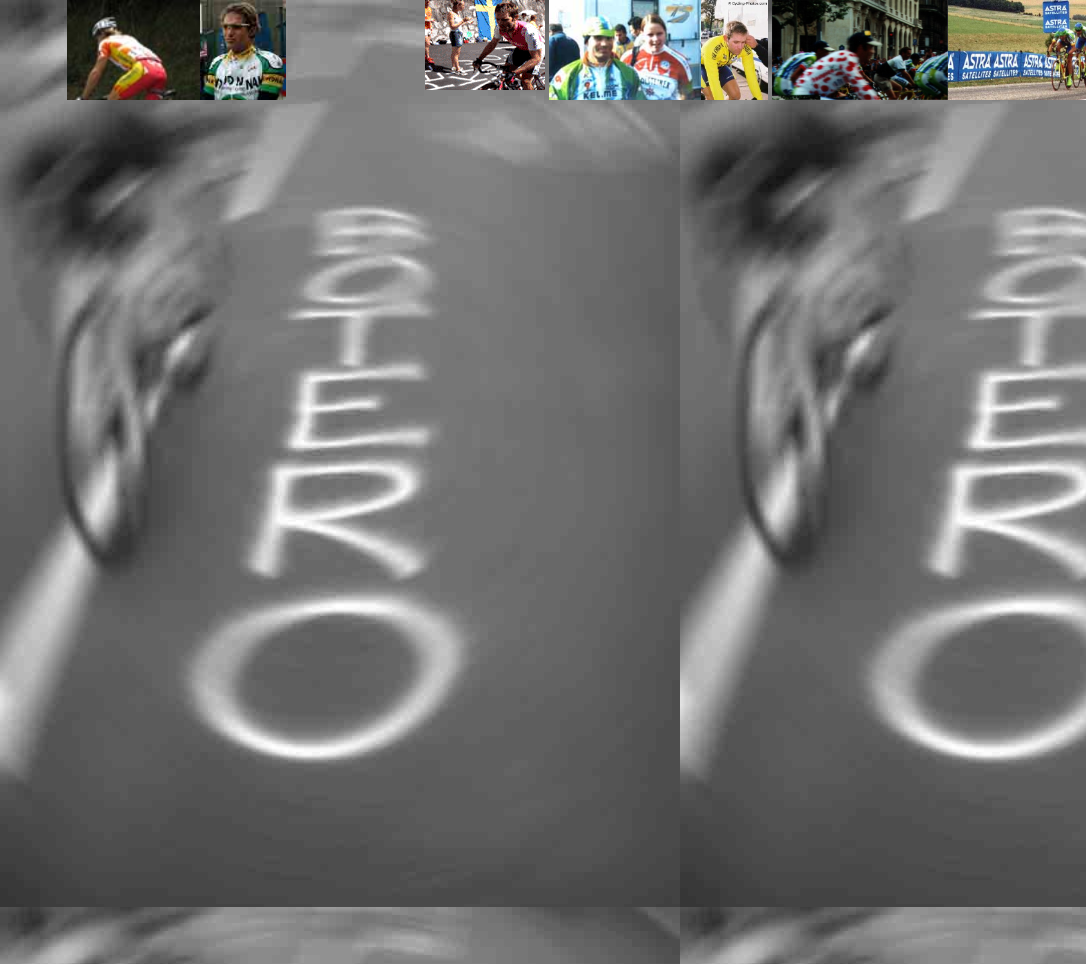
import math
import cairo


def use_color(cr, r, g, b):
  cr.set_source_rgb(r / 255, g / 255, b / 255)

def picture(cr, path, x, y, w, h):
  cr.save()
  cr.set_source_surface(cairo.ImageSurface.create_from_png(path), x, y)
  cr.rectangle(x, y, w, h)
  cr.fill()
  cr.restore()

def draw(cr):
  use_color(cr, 255, 255, 255)
  cr.paint()
  picture(cr, "img_01.png", 0, 0, 1086, 964)
  picture(cr, "img_02.png", 67, 0, 133, 100)
  picture(cr, "img_03.png", 200, 0, 86, 100)
  picture(cr, "img_04.png", 425, 0, 120, 90)
  picture(cr, "img_05.png", 549, 0, 152, 100)
  picture(cr, "img_06.png", 701, 0, 67, 100)
  picture(cr, "img_07.png", 772, 0, 176, 100)
  picture(cr, "img_08.png", 948, 0, 138, 100)


surface = cairo.ImageSurface(cairo.FORMAT_RGB24, 1086, 964)
cr = cairo.Context(surface)
options = cairo.FontOptions()
options.set_hint_metrics(cairo.HINT_METRICS_OFF)
options.set_hint_style(cairo.HINT_STYLE_NONE)
cr.set_font_options(options)
cr.set_miter_limit(4)
draw(cr)
surface.write_to_png("out.png")
